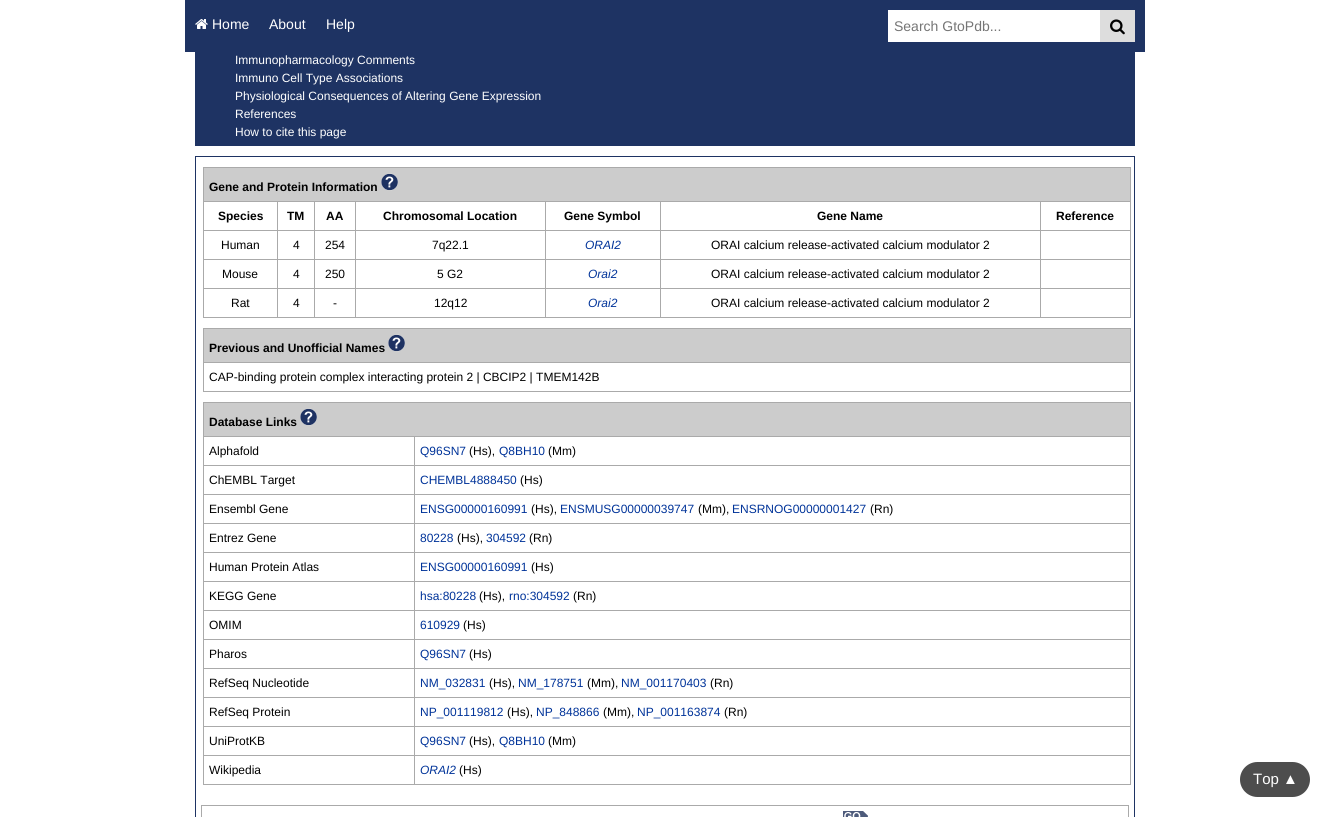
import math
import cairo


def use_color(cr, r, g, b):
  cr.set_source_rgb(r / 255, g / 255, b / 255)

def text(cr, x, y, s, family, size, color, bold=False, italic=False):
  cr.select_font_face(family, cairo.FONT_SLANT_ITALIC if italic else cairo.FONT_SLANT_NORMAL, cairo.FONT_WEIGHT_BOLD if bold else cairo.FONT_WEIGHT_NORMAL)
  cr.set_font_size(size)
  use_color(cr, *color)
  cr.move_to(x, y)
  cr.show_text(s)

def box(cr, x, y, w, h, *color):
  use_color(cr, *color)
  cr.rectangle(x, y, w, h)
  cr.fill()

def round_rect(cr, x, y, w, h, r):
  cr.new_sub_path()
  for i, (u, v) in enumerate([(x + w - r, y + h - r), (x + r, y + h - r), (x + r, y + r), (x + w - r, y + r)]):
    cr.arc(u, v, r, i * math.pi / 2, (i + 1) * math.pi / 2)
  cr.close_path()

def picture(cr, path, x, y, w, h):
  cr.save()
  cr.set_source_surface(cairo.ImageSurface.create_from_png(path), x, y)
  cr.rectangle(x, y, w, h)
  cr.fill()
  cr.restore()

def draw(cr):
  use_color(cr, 255, 255, 255)
  cr.paint()
  box(cr, 185, 0, 960, 52, 30, 51, 99)
  picture(cr, "img_01.png", 195, 19, 13, 10)
  box(cr, 888, 10, 212, 32, 255, 255, 255)
  box(cr, 1100, 10, 35, 32, 221, 221, 221)
  picture(cr, "img_02.png", 1110, 19, 15, 16)
  box(cr, 195, 52, 940, 94, 30, 51, 99)
  cr.rectangle(195.5, 156.5, 939, 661)
  cr.set_line_width(1)
  cr.stroke()
  box(cr, 204, 168, 926, 33, 204, 204, 204)
  box(cr, 203, 167, 928, 1, 170, 170, 170)
  box(cr, 1040, 201, 91, 1, 170, 170, 170)
  box(cr, 1040, 230, 91, 1, 170, 170, 170)
  box(cr, 1040, 259, 91, 1, 170, 170, 170)
  box(cr, 1040, 288, 91, 1, 170, 170, 170)
  box(cr, 1130, 288, 1, 30, 170, 170, 170)
  box(cr, 1130, 259, 1, 30, 170, 170, 170)
  box(cr, 1130, 230, 1, 30, 170, 170, 170)
  box(cr, 1130, 201, 1, 30, 170, 170, 170)
  box(cr, 1130, 167, 1, 35, 170, 170, 170)
  box(cr, 1040, 317, 91, 1, 170, 170, 170)
  box(cr, 1040, 288, 1, 30, 170, 170, 170)
  box(cr, 660, 288, 381, 1, 170, 170, 170)
  box(cr, 1040, 259, 1, 30, 170, 170, 170)
  box(cr, 660, 259, 381, 1, 170, 170, 170)
  box(cr, 1040, 230, 1, 30, 170, 170, 170)
  box(cr, 660, 230, 381, 1, 170, 170, 170)
  box(cr, 1040, 201, 1, 30, 170, 170, 170)
  box(cr, 660, 201, 381, 1, 170, 170, 170)
  box(cr, 660, 317, 381, 1, 170, 170, 170)
  box(cr, 660, 288, 1, 30, 170, 170, 170)
  box(cr, 545, 288, 116, 1, 170, 170, 170)
  box(cr, 660, 259, 1, 30, 170, 170, 170)
  box(cr, 545, 259, 116, 1, 170, 170, 170)
  box(cr, 660, 230, 1, 30, 170, 170, 170)
  box(cr, 545, 230, 116, 1, 170, 170, 170)
  box(cr, 660, 201, 1, 30, 170, 170, 170)
  box(cr, 545, 201, 116, 1, 170, 170, 170)
  box(cr, 545, 317, 116, 1, 170, 170, 170)
  box(cr, 545, 288, 1, 30, 170, 170, 170)
  box(cr, 355, 288, 191, 1, 170, 170, 170)
  box(cr, 545, 259, 1, 30, 170, 170, 170)
  box(cr, 355, 259, 191, 1, 170, 170, 170)
  box(cr, 545, 230, 1, 30, 170, 170, 170)
  box(cr, 355, 230, 191, 1, 170, 170, 170)
  box(cr, 545, 201, 1, 30, 170, 170, 170)
  box(cr, 355, 201, 191, 1, 170, 170, 170)
  box(cr, 355, 317, 191, 1, 170, 170, 170)
  box(cr, 355, 288, 1, 30, 170, 170, 170)
  box(cr, 314, 288, 42, 1, 170, 170, 170)
  box(cr, 355, 259, 1, 30, 170, 170, 170)
  box(cr, 314, 259, 42, 1, 170, 170, 170)
  box(cr, 355, 230, 1, 30, 170, 170, 170)
  box(cr, 314, 230, 42, 1, 170, 170, 170)
  box(cr, 355, 201, 1, 30, 170, 170, 170)
  box(cr, 314, 201, 42, 1, 170, 170, 170)
  box(cr, 314, 317, 42, 1, 170, 170, 170)
  box(cr, 314, 288, 1, 30, 170, 170, 170)
  box(cr, 277, 288, 38, 1, 170, 170, 170)
  box(cr, 314, 259, 1, 30, 170, 170, 170)
  box(cr, 277, 259, 38, 1, 170, 170, 170)
  box(cr, 314, 230, 1, 30, 170, 170, 170)
  box(cr, 277, 230, 38, 1, 170, 170, 170)
  box(cr, 314, 201, 1, 30, 170, 170, 170)
  box(cr, 277, 201, 38, 1, 170, 170, 170)
  box(cr, 277, 317, 38, 1, 170, 170, 170)
  box(cr, 277, 288, 1, 30, 170, 170, 170)
  box(cr, 203, 288, 75, 1, 170, 170, 170)
  box(cr, 277, 259, 1, 30, 170, 170, 170)
  box(cr, 203, 259, 75, 1, 170, 170, 170)
  box(cr, 277, 230, 1, 30, 170, 170, 170)
  box(cr, 203, 230, 75, 1, 170, 170, 170)
  box(cr, 277, 201, 1, 30, 170, 170, 170)
  box(cr, 203, 201, 75, 1, 170, 170, 170)
  box(cr, 203, 317, 75, 1, 170, 170, 170)
  box(cr, 203, 288, 1, 30, 170, 170, 170)
  box(cr, 203, 259, 1, 30, 170, 170, 170)
  box(cr, 203, 230, 1, 30, 170, 170, 170)
  box(cr, 203, 201, 1, 30, 170, 170, 170)
  box(cr, 203, 167, 1, 35, 170, 170, 170)
  picture(cr, "img_03.png", 381, 173, 17, 18)
  box(cr, 204, 329, 926, 33, 204, 204, 204)
  box(cr, 203, 328, 928, 1, 170, 170, 170)
  box(cr, 203, 362, 928, 1, 170, 170, 170)
  box(cr, 1130, 362, 1, 30, 170, 170, 170)
  box(cr, 1130, 328, 1, 35, 170, 170, 170)
  box(cr, 203, 391, 928, 1, 170, 170, 170)
  box(cr, 203, 362, 1, 30, 170, 170, 170)
  box(cr, 203, 328, 1, 35, 170, 170, 170)
  picture(cr, "img_03.png", 388, 334, 17, 18)
  box(cr, 204, 403, 926, 33, 204, 204, 204)
  box(cr, 203, 402, 928, 1, 170, 170, 170)
  box(cr, 414, 436, 717, 1, 170, 170, 170)
  box(cr, 414, 465, 717, 1, 170, 170, 170)
  box(cr, 414, 494, 717, 1, 170, 170, 170)
  box(cr, 414, 523, 717, 1, 170, 170, 170)
  box(cr, 414, 552, 717, 1, 170, 170, 170)
  box(cr, 414, 581, 717, 1, 170, 170, 170)
  box(cr, 414, 610, 717, 1, 170, 170, 170)
  box(cr, 414, 639, 717, 1, 170, 170, 170)
  box(cr, 414, 668, 717, 1, 170, 170, 170)
  box(cr, 414, 697, 717, 1, 170, 170, 170)
  box(cr, 414, 726, 717, 1, 170, 170, 170)
  box(cr, 414, 755, 717, 1, 170, 170, 170)
  box(cr, 1130, 755, 1, 30, 170, 170, 170)
  box(cr, 1130, 726, 1, 30, 170, 170, 170)
  box(cr, 1130, 697, 1, 30, 170, 170, 170)
  box(cr, 1130, 668, 1, 30, 170, 170, 170)
  box(cr, 1130, 639, 1, 30, 170, 170, 170)
  box(cr, 1130, 610, 1, 30, 170, 170, 170)
  box(cr, 1130, 581, 1, 30, 170, 170, 170)
  box(cr, 1130, 552, 1, 30, 170, 170, 170)
  box(cr, 1130, 523, 1, 30, 170, 170, 170)
  box(cr, 1130, 494, 1, 30, 170, 170, 170)
  box(cr, 1130, 465, 1, 30, 170, 170, 170)
  box(cr, 1130, 436, 1, 30, 170, 170, 170)
  box(cr, 1130, 402, 1, 35, 170, 170, 170)
  box(cr, 414, 784, 717, 1, 170, 170, 170)
  box(cr, 414, 755, 1, 30, 170, 170, 170)
  box(cr, 203, 755, 212, 1, 170, 170, 170)
  box(cr, 414, 726, 1, 30, 170, 170, 170)
  box(cr, 203, 726, 212, 1, 170, 170, 170)
  box(cr, 414, 697, 1, 30, 170, 170, 170)
  box(cr, 203, 697, 212, 1, 170, 170, 170)
  box(cr, 414, 668, 1, 30, 170, 170, 170)
  box(cr, 203, 668, 212, 1, 170, 170, 170)
  box(cr, 414, 639, 1, 30, 170, 170, 170)
  box(cr, 203, 639, 212, 1, 170, 170, 170)
  box(cr, 414, 610, 1, 30, 170, 170, 170)
  box(cr, 203, 610, 212, 1, 170, 170, 170)
  box(cr, 414, 581, 1, 30, 170, 170, 170)
  box(cr, 203, 581, 212, 1, 170, 170, 170)
  box(cr, 414, 552, 1, 30, 170, 170, 170)
  box(cr, 203, 552, 212, 1, 170, 170, 170)
  box(cr, 414, 523, 1, 30, 170, 170, 170)
  box(cr, 203, 523, 212, 1, 170, 170, 170)
  box(cr, 414, 494, 1, 30, 170, 170, 170)
  box(cr, 203, 494, 212, 1, 170, 170, 170)
  box(cr, 414, 465, 1, 30, 170, 170, 170)
  box(cr, 203, 465, 212, 1, 170, 170, 170)
  box(cr, 414, 436, 1, 30, 170, 170, 170)
  box(cr, 203, 436, 212, 1, 170, 170, 170)
  box(cr, 203, 784, 212, 1, 170, 170, 170)
  box(cr, 203, 755, 1, 30, 170, 170, 170)
  box(cr, 203, 726, 1, 30, 170, 170, 170)
  box(cr, 203, 697, 1, 30, 170, 170, 170)
  box(cr, 203, 668, 1, 30, 170, 170, 170)
  box(cr, 203, 639, 1, 30, 170, 170, 170)
  box(cr, 203, 610, 1, 30, 170, 170, 170)
  box(cr, 203, 581, 1, 30, 170, 170, 170)
  box(cr, 203, 552, 1, 30, 170, 170, 170)
  box(cr, 203, 523, 1, 30, 170, 170, 170)
  box(cr, 203, 494, 1, 30, 170, 170, 170)
  box(cr, 203, 465, 1, 30, 170, 170, 170)
  box(cr, 203, 436, 1, 30, 170, 170, 170)
  box(cr, 203, 402, 1, 35, 170, 170, 170)
  picture(cr, "img_03.png", 300, 408, 17, 18)
  cr.rectangle(201.5, 805.5, 927, 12)
  cr.stroke()
  picture(cr, "img_04.png", 843, 811, 25, 6)
  use_color(cr, 77, 77, 77)
  round_rect(cr, 1240, 762, 70, 35, 17.5)
  cr.fill()
  text(cr, 212, 29, "Home", "Liberation Sans", 14, (255, 255, 255))
  text(cr, 269, 29, "About", "Liberation Sans", 14, (255, 255, 255))
  text(cr, 326, 29, "Help", "Liberation Sans", 14, (255, 255, 255))
  text(cr, 894, 31, "Search GtoPdb...", "Liberation Sans", 14, (117, 117, 117))
  text(cr, 235, 64, "Immunopharmacology Comments", "Liberation Sans", 12, (255, 255, 255))
  text(cr, 235, 82, "Immuno Cell Type Associations", "Liberation Sans", 12, (255, 255, 255))
  text(cr, 235, 100, "Physiological Consequences of Altering Gene Expression", "Liberation Sans", 12, (255, 255, 255))
  text(cr, 235, 118, "References", "Liberation Sans", 12, (255, 255, 255))
  text(cr, 235, 136, "How to cite this page", "Liberation Sans", 12, (255, 255, 255))
  text(cr, 209, 191, "Gene and Protein Information", "Liberation Sans", 12, (0, 0, 0), bold=True)
  text(cr, 218, 220, "Species", "Liberation Sans", 12, (0, 0, 0), bold=True)
  text(cr, 287, 220, "TM", "Liberation Sans", 12, (0, 0, 0), bold=True)
  text(cr, 326, 220, "AA", "Liberation Sans", 12, (0, 0, 0), bold=True)
  text(cr, 383, 220, "Chromosomal Location", "Liberation Sans", 12, (0, 0, 0), bold=True)
  text(cr, 564, 220, "Gene Symbol", "Liberation Sans", 12, (0, 0, 0), bold=True)
  text(cr, 817, 220, "Gene Name", "Liberation Sans", 12, (0, 0, 0), bold=True)
  text(cr, 1056, 220, "Reference", "Liberation Sans", 12, (0, 0, 0), bold=True)
  text(cr, 221, 249, "Human", "Liberation Sans", 12, (0, 0, 0))
  text(cr, 293, 249, "4", "Liberation Sans", 12, (0, 0, 0))
  text(cr, 325, 249, "254", "Liberation Sans", 12, (0, 0, 0))
  text(cr, 432, 249, "7q22.1", "Liberation Sans", 12, (0, 0, 0))
  text(cr, 585, 249, "ORAI2", "Liberation Sans", 12, (0, 51, 153), italic=True)
  text(cr, 711, 249, "ORAI calcium release-activated calcium modulator 2", "Liberation Sans", 12, (0, 0, 0))
  text(cr, 222, 278, "Mouse", "Liberation Sans", 12, (0, 0, 0))
  text(cr, 293, 278, "4", "Liberation Sans", 12, (0, 0, 0))
  text(cr, 325, 278, "250", "Liberation Sans", 12, (0, 0, 0))
  text(cr, 437, 278, "5 G2", "Liberation Sans", 12, (0, 0, 0))
  text(cr, 588, 278, "Orai2", "Liberation Sans", 12, (0, 51, 153), italic=True)
  text(cr, 711, 278, "ORAI calcium release-activated calcium modulator 2", "Liberation Sans", 12, (0, 0, 0))
  text(cr, 231, 307, "Rat", "Liberation Sans", 12, (0, 0, 0))
  text(cr, 293, 307, "4", "Liberation Sans", 12, (0, 0, 0))
  text(cr, 333, 307, "-", "Liberation Sans", 12, (0, 0, 0))
  text(cr, 434, 307, "12q12", "Liberation Sans", 12, (0, 0, 0))
  text(cr, 588, 307, "Orai2", "Liberation Sans", 12, (0, 51, 153), italic=True)
  text(cr, 711, 307, "ORAI calcium release-activated calcium modulator 2", "Liberation Sans", 12, (0, 0, 0))
  text(cr, 209, 352, "Previous and Unofficial Names", "Liberation Sans", 12, (0, 0, 0), bold=True)
  text(cr, 209, 381, "CAP-binding protein complex interacting protein 2 | CBCIP2 | TMEM142B", "Liberation Sans", 12, (0, 0, 0))
  text(cr, 209, 426, "Database Links", "Liberation Sans", 12, (0, 0, 0), bold=True)
  text(cr, 209, 455, "Alphafold", "Liberation Sans", 12, (0, 0, 0))
  text(cr, 420, 455, "Q96SN7", "Liberation Sans", 12, (0, 51, 153))
  text(cr, 469, 455, "(Hs),", "Liberation Sans", 12, (0, 0, 0))
  text(cr, 499, 455, "Q8BH10", "Liberation Sans", 12, (0, 51, 153))
  text(cr, 548, 455, "(Mm)", "Liberation Sans", 12, (0, 0, 0))
  text(cr, 209, 484, "ChEMBL Target", "Liberation Sans", 12, (0, 0, 0))
  text(cr, 420, 484, "CHEMBL4888450", "Liberation Sans", 12, (0, 51, 153))
  text(cr, 520, 484, "(Hs)", "Liberation Sans", 12, (0, 0, 0))
  text(cr, 209, 513, "Ensembl Gene", "Liberation Sans", 12, (0, 0, 0))
  text(cr, 420, 513, "ENSG00000160991", "Liberation Sans", 12, (0, 51, 153))
  text(cr, 531, 513, "(Hs),", "Liberation Sans", 12, (0, 0, 0))
  text(cr, 560, 513, "ENSMUSG00000039747", "Liberation Sans", 12, (0, 51, 153))
  text(cr, 698, 513, "(Mm),", "Liberation Sans", 12, (0, 0, 0))
  text(cr, 732, 513, "ENSRNOG00000001427", "Liberation Sans", 12, (0, 51, 153))
  text(cr, 870, 513, "(Rn)", "Liberation Sans", 12, (0, 0, 0))
  text(cr, 209, 542, "Entrez Gene", "Liberation Sans", 12, (0, 0, 0))
  text(cr, 420, 542, "80228", "Liberation Sans", 12, (0, 51, 153))
  text(cr, 457, 542, "(Hs),", "Liberation Sans", 12, (0, 0, 0))
  text(cr, 486, 542, "304592", "Liberation Sans", 12, (0, 51, 153))
  text(cr, 529, 542, "(Rn)", "Liberation Sans", 12, (0, 0, 0))
  text(cr, 209, 571, "Human Protein Atlas", "Liberation Sans", 12, (0, 0, 0))
  text(cr, 420, 571, "ENSG00000160991", "Liberation Sans", 12, (0, 51, 153))
  text(cr, 531, 571, "(Hs)", "Liberation Sans", 12, (0, 0, 0))
  text(cr, 209, 600, "KEGG Gene", "Liberation Sans", 12, (0, 0, 0))
  text(cr, 420, 600, "hsa:80228", "Liberation Sans", 12, (0, 51, 153))
  text(cr, 479, 600, "(Hs),", "Liberation Sans", 12, (0, 0, 0))
  text(cr, 509, 600, "rno:304592", "Liberation Sans", 12, (0, 51, 153))
  text(cr, 573, 600, "(Rn)", "Liberation Sans", 12, (0, 0, 0))
  text(cr, 209, 629, "OMIM", "Liberation Sans", 12, (0, 0, 0))
  text(cr, 420, 629, "610929", "Liberation Sans", 12, (0, 51, 153))
  text(cr, 463, 629, "(Hs)", "Liberation Sans", 12, (0, 0, 0))
  text(cr, 209, 658, "Pharos", "Liberation Sans", 12, (0, 0, 0))
  text(cr, 420, 658, "Q96SN7", "Liberation Sans", 12, (0, 51, 153))
  text(cr, 469, 658, "(Hs)", "Liberation Sans", 12, (0, 0, 0))
  text(cr, 209, 687, "RefSeq Nucleotide", "Liberation Sans", 12, (0, 0, 0))
  text(cr, 420, 687, "NM_032831", "Liberation Sans", 12, (0, 51, 153))
  text(cr, 489, 687, "(Hs),", "Liberation Sans", 12, (0, 0, 0))
  text(cr, 518, 687, "NM_178751", "Liberation Sans", 12, (0, 51, 153))
  text(cr, 587, 687, "(Mm),", "Liberation Sans", 12, (0, 0, 0))
  text(cr, 621, 687, "NM_001170403", "Liberation Sans", 12, (0, 51, 153))
  text(cr, 710, 687, "(Rn)", "Liberation Sans", 12, (0, 0, 0))
  text(cr, 209, 716, "RefSeq Protein", "Liberation Sans", 12, (0, 0, 0))
  text(cr, 420, 716, "NP_001119812", "Liberation Sans", 12, (0, 51, 153))
  text(cr, 507, 716, "(Hs),", "Liberation Sans", 12, (0, 0, 0))
  text(cr, 536, 716, "NP_848866", "Liberation Sans", 12, (0, 51, 153))
  text(cr, 603, 716, "(Mm),", "Liberation Sans", 12, (0, 0, 0))
  text(cr, 637, 716, "NP_001163874", "Liberation Sans", 12, (0, 51, 153))
  text(cr, 724, 716, "(Rn)", "Liberation Sans", 12, (0, 0, 0))
  text(cr, 209, 745, "UniProtKB", "Liberation Sans", 12, (0, 0, 0))
  text(cr, 420, 745, "Q96SN7", "Liberation Sans", 12, (0, 51, 153))
  text(cr, 469, 745, "(Hs),", "Liberation Sans", 12, (0, 0, 0))
  text(cr, 499, 745, "Q8BH10", "Liberation Sans", 12, (0, 51, 153))
  text(cr, 548, 745, "(Mm)", "Liberation Sans", 12, (0, 0, 0))
  text(cr, 209, 774, "Wikipedia", "Liberation Sans", 12, (0, 0, 0))
  text(cr, 420, 774, "ORAI2", "Liberation Sans", 12, (0, 51, 153), italic=True)
  text(cr, 459, 774, "(Hs)", "Liberation Sans", 12, (0, 0, 0))
  text(cr, 1253, 784, "Top ▲", "Liberation Sans", 15, (255, 255, 255))


surface = cairo.ImageSurface(cairo.FORMAT_RGB24, 1330, 817)
cr = cairo.Context(surface)
options = cairo.FontOptions()
options.set_hint_metrics(cairo.HINT_METRICS_OFF)
options.set_hint_style(cairo.HINT_STYLE_NONE)
cr.set_font_options(options)
cr.set_miter_limit(4)
draw(cr)
surface.write_to_png("out.png")
